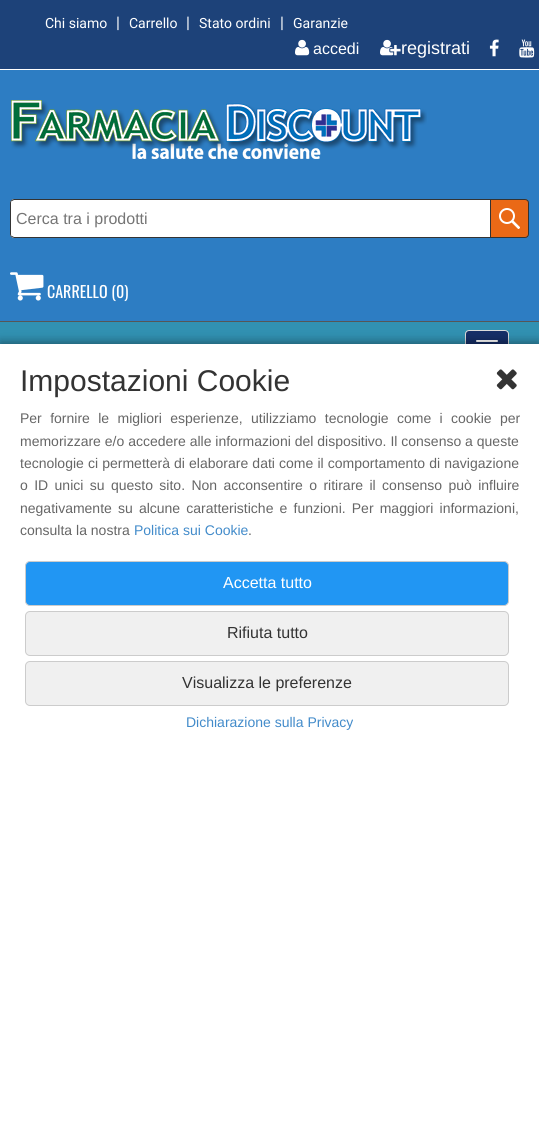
import math
import cairo


def use_color(cr, r, g, b):
  cr.set_source_rgb(r / 255, g / 255, b / 255)

def text(cr, x, y, s, family, size, color, bold=False, italic=False):
  cr.select_font_face(family, cairo.FONT_SLANT_ITALIC if italic else cairo.FONT_SLANT_NORMAL, cairo.FONT_WEIGHT_BOLD if bold else cairo.FONT_WEIGHT_NORMAL)
  cr.set_font_size(size)
  use_color(cr, *color)
  cr.move_to(x, y)
  cr.show_text(s)

def spaced_text(cr, x, y, s, letter, word):
  cr.move_to(x, y)
  for ch in s:
    cr.show_text(ch)
    cr.rel_move_to(letter + word * (ch == ' '), 0)

def box(cr, x, y, w, h, *color):
  use_color(cr, *color)
  cr.rectangle(x, y, w, h)
  cr.fill()

def round_rect(cr, x, y, w, h, r):
  cr.new_sub_path()
  for i, (u, v) in enumerate([(x + w - r, y + h - r), (x + r, y + h - r), (x + r, y + r), (x + w - r, y + r)]):
    cr.arc(u, v, r, i * math.pi / 2, (i + 1) * math.pi / 2)
  cr.close_path()

def shadow(cr, x, y, w, h, r, blur, alpha):
  cr.push_group_with_content(cairo.CONTENT_ALPHA)
  cr.set_operator(cairo.OPERATOR_SOURCE)
  for i in range(15, -16, -2):
    e = blur * i / 6
    if min(w, h) + 2 * e > 0:
      cr.set_source_rgba(0, 0, 0, alpha * math.erfc((i - 1) / 8.5) / 2)
      round_rect(cr, x - e, y - e, w + 2 * e, h + 2 * e, max(0, min(r + e + blur * .6, min(w, h) / 2 + e)))
      cr.fill()
  cr.mask(cr.pop_group())

def picture(cr, path, x, y, w, h):
  cr.save()
  cr.set_source_surface(cairo.ImageSurface.create_from_png(path), x, y)
  cr.rectangle(x, y, w, h)
  cr.fill()
  cr.restore()

def draw(cr):
  use_color(cr, 29, 66, 121)
  cr.paint()
  box(cr, 0, 69, 539, 1, 255, 255, 255)
  picture(cr, "img_01.png", 295, 39, 15, 17)
  picture(cr, "img_02.png", 380, 39, 21, 17)
  picture(cr, "img_03.png", 489, 39, 10, 18)
  picture(cr, "img_04.png", 519, 39, 16, 19)
  box(cr, 0, 70, 539, 251, 45, 125, 195)
  box(cr, 0, 321, 539, 1, 86, 86, 86)
  picture(cr, "img_05.png", 11, 100, 416, 59)
  use_color(cr, 255, 255, 255)
  cr.new_path()
  cr.move_to(14, 199)
  cr.line_to(493, 199)
  cr.line_to(493, 238)
  cr.line_to(14, 238)
  cr.curve_to(12, 238, 10, 236, 10, 234)
  cr.line_to(10, 203)
  cr.curve_to(10, 201, 12, 199, 14, 199)
  cr.close_path()
  cr.fill()
  use_color(cr, 51, 51, 51)
  cr.new_path()
  cr.move_to(14, 199)
  cr.line_to(11, 200)
  cr.line_to(12, 201)
  cr.line_to(14, 200)
  cr.line_to(491, 200)
  cr.line_to(493, 199)
  cr.close_path()
  cr.fill()
  cr.new_path()
  cr.move_to(493, 238)
  cr.line_to(491, 237)
  cr.line_to(14, 237)
  cr.line_to(12, 236)
  cr.line_to(11, 237)
  cr.line_to(14, 238)
  cr.close_path()
  cr.fill()
  cr.new_path()
  cr.move_to(10, 203)
  cr.line_to(10, 234)
  cr.curve_to(10, 235, 10.5, 236, 11, 237)
  cr.line_to(12, 236)
  cr.curve_to(11, 236, 11, 235, 11, 234)
  cr.line_to(11, 203)
  cr.curve_to(11, 202, 11, 201, 12, 201)
  cr.line_to(11, 200)
  cr.curve_to(10.5, 201, 10, 202, 10, 203)
  cr.close_path()
  cr.fill()
  use_color(cr, 234, 105, 22)
  cr.new_path()
  cr.move_to(490, 199)
  cr.line_to(525, 199)
  cr.curve_to(527, 199, 529, 201, 529, 203)
  cr.line_to(529, 234)
  cr.curve_to(529, 236, 527, 238, 525, 238)
  cr.line_to(490, 238)
  cr.close_path()
  cr.fill()
  picture(cr, "img_06.png", 499, 208, 21, 21)
  cr.new_path()
  cr.move_to(490.5, 199.5)
  cr.line_to(525, 199.5)
  cr.curve_to(527, 199.5, 528.5, 201, 528.5, 203)
  cr.line_to(528.5, 234)
  cr.curve_to(528.5, 236, 527, 237.5, 525, 237.5)
  cr.line_to(490.5, 237.5)
  cr.close_path()
  use_color(cr, 51, 51, 51)
  cr.set_line_width(1)
  cr.stroke()
  picture(cr, "img_07.png", 10, 272, 34, 29)
  box(cr, 0, 322, 539, 22, 49, 145, 178)
  use_color(cr, 22, 47, 104)
  round_rect(cr, 465.5, 330.5, 43, 33, 3.5)
  cr.fill_preserve()
  use_color(cr, 221, 221, 221)
  cr.stroke()
  use_color(cr, 255, 255, 255)
  round_rect(cr, 476, 340, 22, 2, 1)
  cr.fill()
  use_color(cr, 0, 0, 0)
  shadow(cr, 0, 342, 539, 803, 0, 5, 0.4)
  box(cr, 0, 344, 539, 803, 255, 255, 255)
  picture(cr, "img_08.png", 496, 369, 21, 21)
  use_color(cr, 33, 150, 243)
  round_rect(cr, 25.5, 561.5, 483, 44, 4.5)
  cr.fill_preserve()
  use_color(cr, 204, 204, 204)
  cr.stroke()
  use_color(cr, 240, 240, 240)
  round_rect(cr, 25.5, 611.5, 483, 44, 4.5)
  cr.fill_preserve()
  use_color(cr, 204, 204, 204)
  cr.stroke()
  use_color(cr, 240, 240, 240)
  round_rect(cr, 25.5, 661.5, 483, 44, 4.5)
  cr.fill_preserve()
  use_color(cr, 204, 204, 204)
  cr.stroke()
  text(cr, 45, 28, "Chi siamo", "Roboto", 14, (255, 255, 255))
  text(cr, 116, 28, "|", "Roboto", 16, (255, 255, 255))
  text(cr, 129, 28, "Carrello", "Roboto", 14, (255, 255, 255))
  text(cr, 186, 28, "|", "Roboto", 16, (255, 255, 255))
  text(cr, 199, 28, "Stato ordini", "Roboto", 14, (255, 255, 255))
  text(cr, 280, 28, "|", "Roboto", 16, (255, 255, 255))
  text(cr, 293, 28, "Garanzie", "Roboto", 14, (255, 255, 255))
  text(cr, 313, 54, "accedi", "Liberation Sans", 16, (255, 255, 255))
  text(cr, 401, 54, "registrati", "Liberation Sans", 18, (255, 255, 255))
  text(cr, 16, 224, "Cerca tra i prodotti", "Liberation Sans", 16, (117, 117, 117))
  text(cr, 47, 298, "CARRELLO (0)", "Oswald", 16, (255, 255, 255))
  text(cr, 20, 391, "Impostazioni Cookie", "Liberation Sans", 30, (51, 51, 51))
  cr.set_font_size(14)
  use_color(cr, 102, 102, 102)
  spaced_text(cr, 20, 423, "Per fornire le migliori esperienze, utilizziamo tecnologie come i cookie per", 0, 4.5)
  text(cr, 20, 446, "memorizzare e/o accedere alle informazioni del dispositivo. Il consenso a queste", "Liberation Sans", 14, (102, 102, 102))
  spaced_text(cr, 20, 468, "tecnologie ci permetterà di elaborare dati come il comportamento di navigazione", 0, 0.25)
  spaced_text(cr, 20, 490, "o ID unici su questo sito. Non acconsentire o ritirare il consenso può influire", 0, 2.5)
  spaced_text(cr, 20, 513, "negativamente su alcune caratteristiche e funzioni. Per maggiori informazioni,", 0, 2.25)
  text(cr, 20, 535, "consulta la nostra", "Liberation Sans", 14, (102, 102, 102))
  text(cr, 134, 535, "Politica sui Cookie", "Liberation Sans", 14, (66, 139, 202))
  text(cr, 248, 535, ".", "Liberation Sans", 14, (102, 102, 102))
  text(cr, 223, 588, "Accetta tutto", "Liberation Sans", 16, (255, 255, 255))
  text(cr, 227, 638, "Rifiuta tutto", "Liberation Sans", 16, (51, 51, 51))
  text(cr, 182, 688, "Visualizza le preferenze", "Liberation Sans", 16, (51, 51, 51))
  text(cr, 186, 727, "Dichiarazione sulla Privacy", "Liberation Sans", 14, (66, 139, 202))


surface = cairo.ImageSurface(cairo.FORMAT_RGB24, 539, 1147)
cr = cairo.Context(surface)
options = cairo.FontOptions()
options.set_hint_metrics(cairo.HINT_METRICS_OFF)
options.set_hint_style(cairo.HINT_STYLE_NONE)
cr.set_font_options(options)
cr.set_miter_limit(4)
draw(cr)
surface.write_to_png("out.png")
